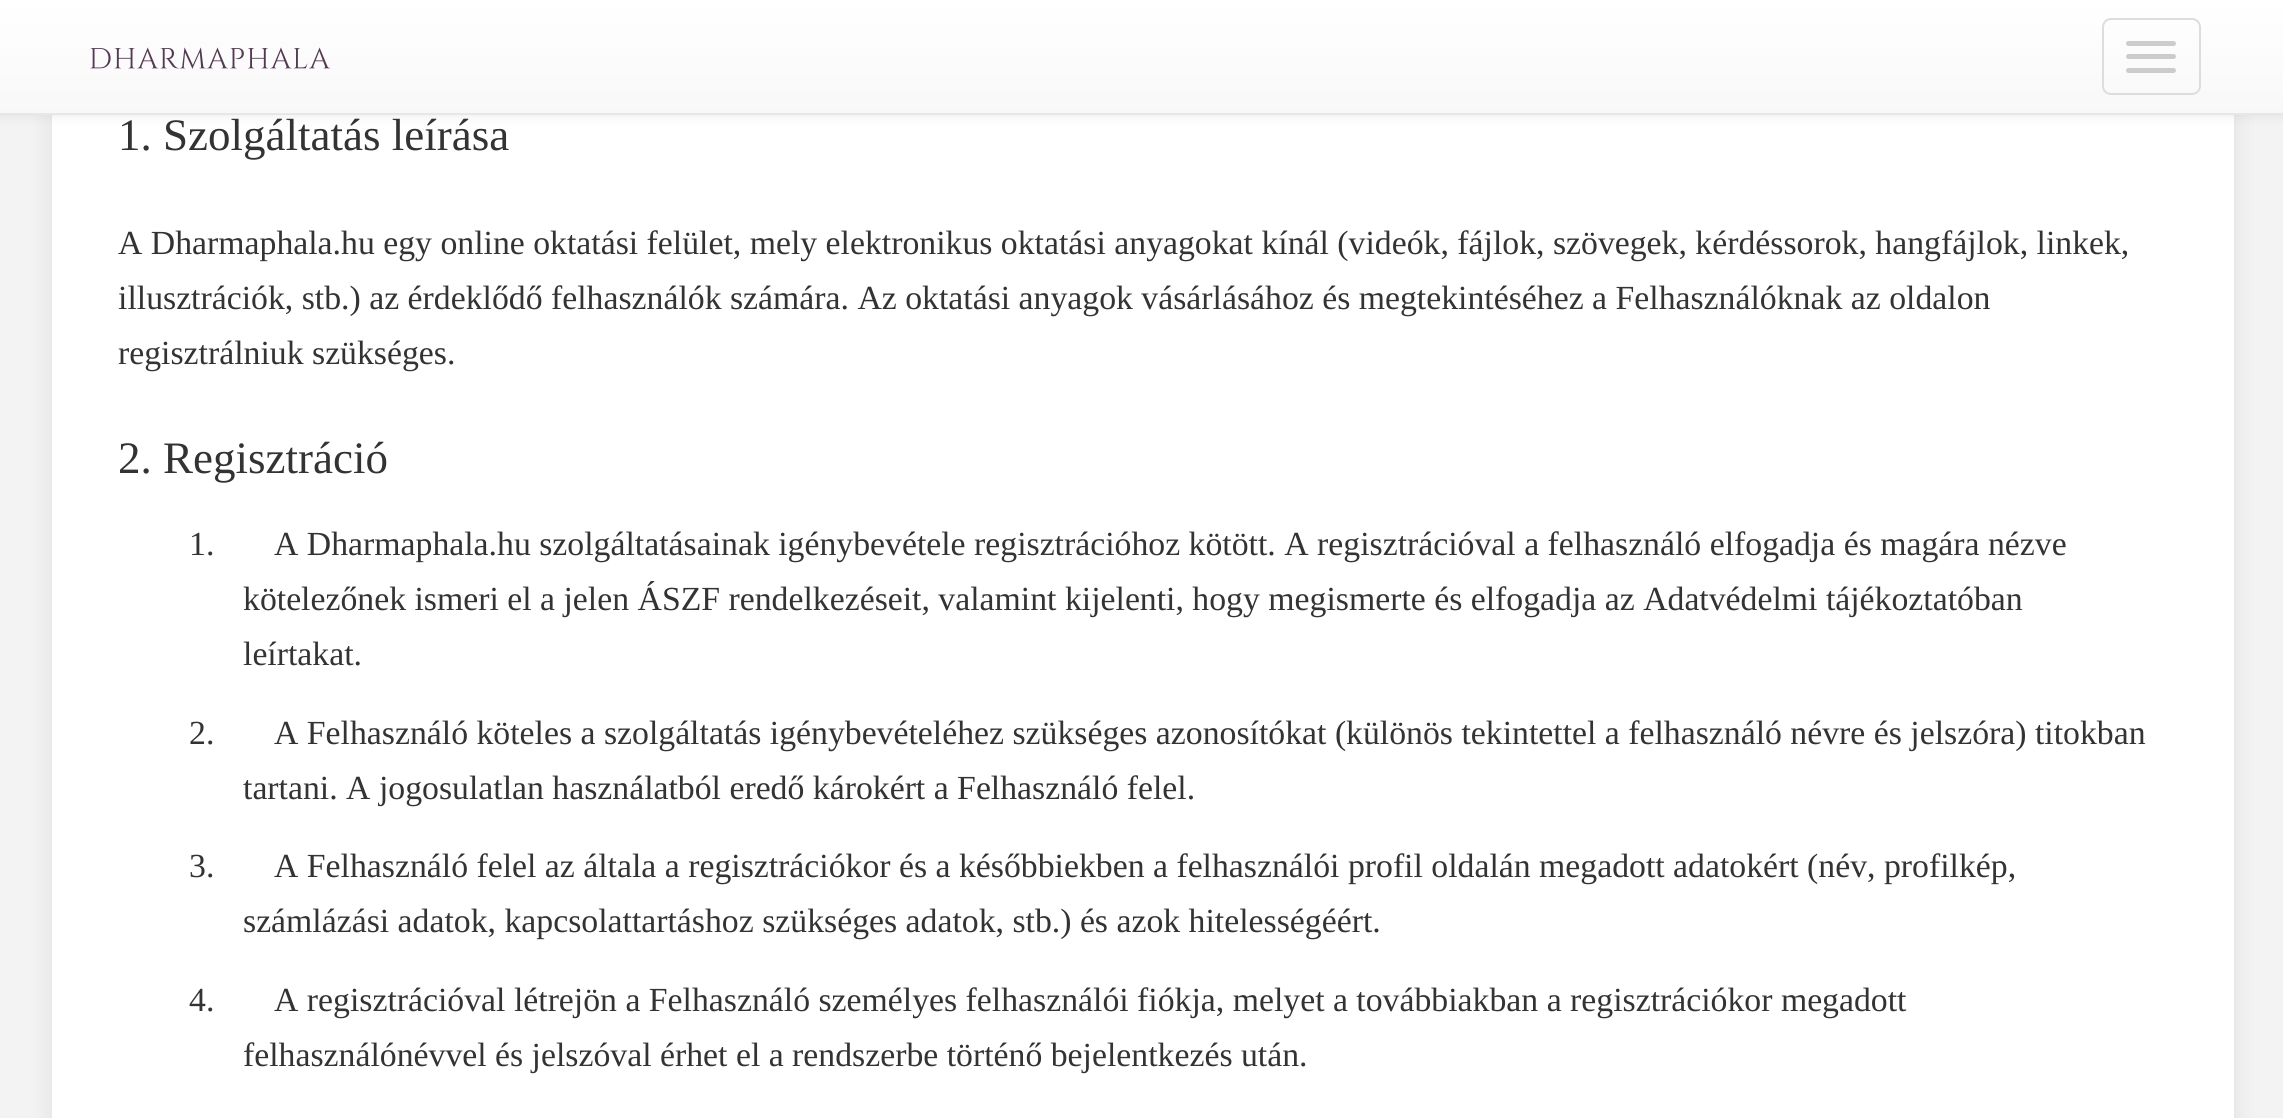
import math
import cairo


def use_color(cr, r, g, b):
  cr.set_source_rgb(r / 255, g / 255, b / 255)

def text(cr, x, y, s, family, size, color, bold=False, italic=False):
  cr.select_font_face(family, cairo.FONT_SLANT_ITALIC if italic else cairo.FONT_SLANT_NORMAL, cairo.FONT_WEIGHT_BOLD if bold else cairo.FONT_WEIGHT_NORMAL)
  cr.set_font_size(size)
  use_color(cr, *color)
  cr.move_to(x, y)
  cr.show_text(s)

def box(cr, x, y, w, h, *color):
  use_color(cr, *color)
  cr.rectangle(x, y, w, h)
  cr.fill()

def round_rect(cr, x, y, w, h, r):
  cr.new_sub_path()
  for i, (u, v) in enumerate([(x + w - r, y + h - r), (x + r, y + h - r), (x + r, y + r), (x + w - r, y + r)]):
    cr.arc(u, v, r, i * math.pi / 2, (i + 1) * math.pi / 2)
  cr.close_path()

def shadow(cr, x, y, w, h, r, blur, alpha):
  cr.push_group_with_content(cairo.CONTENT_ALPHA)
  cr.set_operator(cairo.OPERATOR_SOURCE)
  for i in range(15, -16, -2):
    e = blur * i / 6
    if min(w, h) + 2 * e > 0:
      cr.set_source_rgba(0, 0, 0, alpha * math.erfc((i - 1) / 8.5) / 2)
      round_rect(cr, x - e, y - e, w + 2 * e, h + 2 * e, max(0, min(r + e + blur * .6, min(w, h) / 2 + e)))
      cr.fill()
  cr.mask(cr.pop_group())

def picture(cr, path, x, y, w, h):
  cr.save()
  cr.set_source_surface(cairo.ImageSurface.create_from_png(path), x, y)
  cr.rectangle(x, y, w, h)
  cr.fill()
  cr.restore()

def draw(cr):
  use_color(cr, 243, 243, 243)
  cr.paint()
  use_color(cr, 0, 0, 0)
  shadow(cr, 52, -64, 2182, 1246, 23, 13.5, 0.08)
  box(cr, 52, 115, 2182, 1003, 255, 255, 255)
  use_color(cr, 0, 0, 0)
  shadow(cr, 0, 2, 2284, 115, 0, 5.5, 0.07)
  gradient = cairo.LinearGradient(1142, 0, 1142, 113)
  gradient.add_color_stop_rgba(0, 1, 1, 1, 1)
  gradient.add_color_stop_rgba(1, 0.973, 0.973, 0.973, 1)
  cr.set_source(gradient)
  cr.rectangle(0, 0, 2283, 113)
  cr.fill()
  box(cr, 0, 113, 2283, 2, 231, 231, 231)
  picture(cr, "img_01.png", 90, 47, 241, 22)
  round_rect(cr, 2103, 19, 97, 75, 8)
  use_color(cr, 221, 221, 221)
  cr.stroke()
  use_color(cr, 204, 204, 204)
  round_rect(cr, 2126, 41, 50, 5, 2.5)
  cr.fill()
  round_rect(cr, 2126, 54, 50, 5, 2.5)
  cr.fill()
  round_rect(cr, 2126, 68, 50, 5, 2.5)
  cr.fill()
  text(cr, 118, 150, "1. Szolgáltatás leírása", "Liberation Serif", 45, (51, 51, 51))
  text(cr, 118, 254, "A Dharmaphala.hu egy online oktatási felület, mely elektronikus oktatási anyagokat kínál (videók, fájlok, szövegek, kérdéssorok, hangfájlok, linkek,", "Liberation Serif", 33.75, (51, 51, 51))
  text(cr, 118, 309, "illusztrációk, stb.) az érdeklődő felhasználók számára. Az oktatási anyagok vásárlásához és megtekintéséhez a Felhasználóknak az oldalon", "Liberation Serif", 33.75, (51, 51, 51))
  text(cr, 118, 364, "regisztrálniuk szükséges.", "Liberation Serif", 33.75, (51, 51, 51))
  text(cr, 118, 473, "2. Regisztráció", "Liberation Serif", 45, (51, 51, 51))
  text(cr, 189, 555, "1.", "Liberation Serif", 33.75, (51, 51, 51))
  text(cr, 274, 555, "A Dharmaphala.hu szolgáltatásainak igénybevétele regisztrációhoz kötött. A regisztrációval a felhasználó elfogadja és magára nézve", "Liberation Serif", 33.75, (51, 51, 51))
  text(cr, 243, 610, "kötelezőnek ismeri el a jelen ÁSZF rendelkezéseit, valamint kijelenti, hogy megismerte és elfogadja az Adatvédelmi tájékoztatóban", "Liberation Serif", 33.75, (51, 51, 51))
  text(cr, 243, 665, "leírtakat.", "Liberation Serif", 33.75, (51, 51, 51))
  text(cr, 189, 744, "2.", "Liberation Serif", 33.75, (51, 51, 51))
  text(cr, 274, 744, "A Felhasználó köteles a szolgáltatás igénybevételéhez szükséges azonosítókat (különös tekintettel a felhasználó névre és jelszóra) titokban", "Liberation Serif", 33.75, (51, 51, 51))
  text(cr, 243, 799, "tartani. A jogosulatlan használatból eredő károkért a Felhasználó felel.", "Liberation Serif", 33.75, (51, 51, 51))
  text(cr, 189, 877, "3.", "Liberation Serif", 33.75, (51, 51, 51))
  text(cr, 274, 877, "A Felhasználó felel az általa a regisztrációkor és a későbbiekben a felhasználói profil oldalán megadott adatokért (név, profilkép,", "Liberation Serif", 33.75, (51, 51, 51))
  text(cr, 243, 932, "számlázási adatok, kapcsolattartáshoz szükséges adatok, stb.) és azok hitelességéért.", "Liberation Serif", 33.75, (51, 51, 51))
  text(cr, 189, 1011, "4.", "Liberation Serif", 33.75, (51, 51, 51))
  text(cr, 274, 1011, "A regisztrációval létrejön a Felhasználó személyes felhasználói fiókja, melyet a továbbiakban a regisztrációkor megadott", "Liberation Serif", 33.75, (51, 51, 51))
  text(cr, 243, 1066, "felhasználónévvel és jelszóval érhet el a rendszerbe történő bejelentkezés után.", "Liberation Serif", 33.75, (51, 51, 51))


surface = cairo.ImageSurface(cairo.FORMAT_RGB24, 2283, 1118)
cr = cairo.Context(surface)
options = cairo.FontOptions()
options.set_hint_metrics(cairo.HINT_METRICS_OFF)
options.set_hint_style(cairo.HINT_STYLE_NONE)
cr.set_font_options(options)
cr.set_miter_limit(4)
draw(cr)
surface.write_to_png("out.png")
